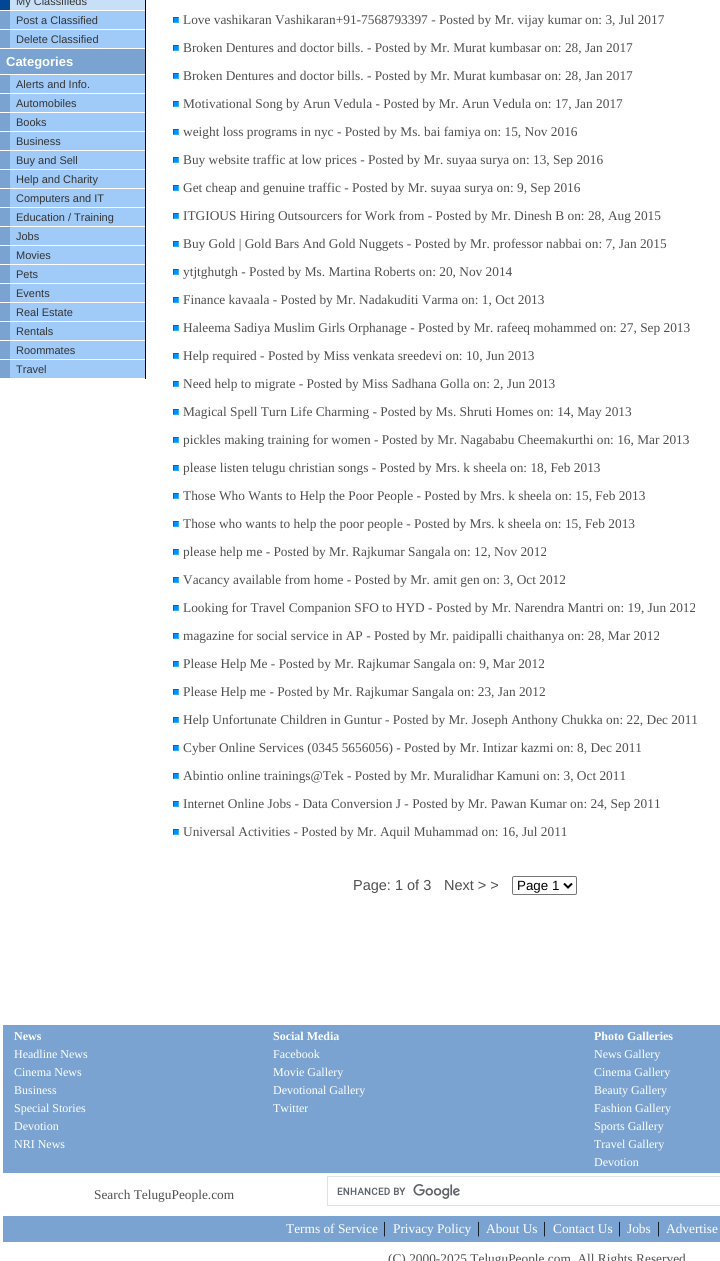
import math
import cairo


def use_color(cr, r, g, b):
  cr.set_source_rgb(r / 255, g / 255, b / 255)

def text(cr, x, y, s, family, size, color, bold=False, italic=False):
  cr.select_font_face(family, cairo.FONT_SLANT_ITALIC if italic else cairo.FONT_SLANT_NORMAL, cairo.FONT_WEIGHT_BOLD if bold else cairo.FONT_WEIGHT_NORMAL)
  cr.set_font_size(size)
  use_color(cr, *color)
  cr.move_to(x, y)
  cr.show_text(s)

def box(cr, x, y, w, h, *color):
  use_color(cr, *color)
  cr.rectangle(x, y, w, h)
  cr.fill()

def round_rect(cr, x, y, w, h, r):
  cr.new_sub_path()
  for i, (u, v) in enumerate([(x + w - r, y + h - r), (x + r, y + h - r), (x + r, y + r), (x + w - r, y + r)]):
    cr.arc(u, v, r, i * math.pi / 2, (i + 1) * math.pi / 2)
  cr.close_path()

def picture(cr, path, x, y, w, h):
  cr.save()
  cr.set_source_surface(cairo.ImageSurface.create_from_png(path), x, y)
  cr.rectangle(x, y, w, h)
  cr.fill()
  cr.restore()

def draw(cr):
  use_color(cr, 255, 255, 255)
  cr.paint()
  box(cr, 145, 0, 1, 379, 0, 0, 0)
  box(cr, 10, 0, 135, 10, 200, 223, 248)
  box(cr, 0, 0, 10, 10, 1, 71, 150)
  box(cr, 10, 11, 135, 18, 160, 202, 248)
  box(cr, 0, 11, 10, 18, 122, 163, 209)
  box(cr, 10, 30, 135, 18, 160, 202, 248)
  box(cr, 0, 30, 10, 18, 122, 163, 209)
  box(cr, 0, 49, 145, 25, 122, 163, 209)
  box(cr, 10, 75, 135, 18, 160, 202, 248)
  box(cr, 0, 75, 10, 18, 122, 163, 209)
  box(cr, 10, 94, 135, 18, 160, 202, 248)
  box(cr, 0, 94, 10, 18, 122, 163, 209)
  box(cr, 10, 113, 135, 18, 160, 202, 248)
  box(cr, 0, 113, 10, 18, 122, 163, 209)
  box(cr, 10, 132, 135, 18, 160, 202, 248)
  box(cr, 0, 132, 10, 18, 122, 163, 209)
  box(cr, 10, 151, 135, 18, 160, 202, 248)
  box(cr, 0, 151, 10, 18, 122, 163, 209)
  box(cr, 10, 170, 135, 18, 160, 202, 248)
  box(cr, 0, 170, 10, 18, 122, 163, 209)
  box(cr, 10, 189, 135, 18, 160, 202, 248)
  box(cr, 0, 189, 10, 18, 122, 163, 209)
  box(cr, 10, 208, 135, 18, 160, 202, 248)
  box(cr, 0, 208, 10, 18, 122, 163, 209)
  box(cr, 10, 227, 135, 18, 160, 202, 248)
  box(cr, 0, 227, 10, 18, 122, 163, 209)
  box(cr, 10, 246, 135, 18, 160, 202, 248)
  box(cr, 0, 246, 10, 18, 122, 163, 209)
  box(cr, 10, 265, 135, 18, 160, 202, 248)
  box(cr, 0, 265, 10, 18, 122, 163, 209)
  box(cr, 10, 284, 135, 18, 160, 202, 248)
  box(cr, 0, 284, 10, 18, 122, 163, 209)
  box(cr, 10, 303, 135, 18, 160, 202, 248)
  box(cr, 0, 303, 10, 18, 122, 163, 209)
  box(cr, 10, 322, 135, 18, 160, 202, 248)
  box(cr, 0, 322, 10, 18, 122, 163, 209)
  box(cr, 10, 341, 135, 18, 160, 202, 248)
  box(cr, 0, 341, 10, 18, 122, 163, 209)
  box(cr, 10, 360, 135, 18, 160, 202, 248)
  box(cr, 0, 360, 10, 18, 122, 163, 209)
  picture(cr, "img_01.png", 173, 17, 6, 6)
  picture(cr, "img_01.png", 173, 45, 6, 6)
  picture(cr, "img_01.png", 173, 73, 6, 6)
  picture(cr, "img_01.png", 173, 101, 6, 6)
  picture(cr, "img_01.png", 173, 129, 6, 6)
  picture(cr, "img_01.png", 173, 157, 6, 6)
  picture(cr, "img_01.png", 173, 185, 6, 6)
  picture(cr, "img_01.png", 173, 213, 6, 6)
  picture(cr, "img_01.png", 173, 241, 6, 6)
  picture(cr, "img_01.png", 173, 269, 6, 6)
  picture(cr, "img_01.png", 173, 297, 6, 6)
  picture(cr, "img_01.png", 173, 325, 6, 6)
  picture(cr, "img_01.png", 173, 353, 6, 6)
  picture(cr, "img_01.png", 173, 381, 6, 6)
  picture(cr, "img_01.png", 173, 409, 6, 6)
  picture(cr, "img_01.png", 173, 437, 6, 6)
  picture(cr, "img_01.png", 173, 465, 6, 6)
  picture(cr, "img_01.png", 173, 493, 6, 6)
  picture(cr, "img_01.png", 173, 521, 6, 6)
  picture(cr, "img_01.png", 173, 549, 6, 6)
  picture(cr, "img_01.png", 173, 577, 6, 6)
  picture(cr, "img_01.png", 173, 605, 6, 6)
  picture(cr, "img_01.png", 173, 633, 6, 6)
  picture(cr, "img_01.png", 173, 661, 6, 6)
  picture(cr, "img_01.png", 173, 689, 6, 6)
  picture(cr, "img_01.png", 173, 717, 6, 6)
  picture(cr, "img_01.png", 173, 745, 6, 6)
  picture(cr, "img_01.png", 173, 773, 6, 6)
  picture(cr, "img_01.png", 173, 801, 6, 6)
  picture(cr, "img_01.png", 173, 829, 6, 6)
  round_rect(cr, 512.5, 876.5, 64, 18, 1.5)
  use_color(cr, 118, 118, 118)
  cr.set_line_width(1)
  cr.stroke()
  cr.new_path()
  cr.move_to(564, 883.5)
  cr.line_to(568, 887.5)
  cr.line_to(572, 883.5)
  use_color(cr, 0, 0, 0)
  cr.set_line_width(2)
  cr.stroke()
  box(cr, 3, 1025, 717, 148, 122, 163, 209)
  cr.rectangle(327.5, 1176.5, 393, 29)
  use_color(cr, 223, 225, 229)
  cr.set_line_width(1)
  cr.stroke()
  picture(cr, "img_02.png", 337, 1184, 123, 15)
  box(cr, 3, 1216, 717, 26, 122, 163, 209)
  text(cr, 16, 5, "My Classifieds", "Liberation Sans", 11, (51, 51, 51))
  text(cr, 16, 24, "Post a Classified", "Liberation Sans", 11, (51, 51, 51))
  text(cr, 16, 43, "Delete Classified", "Liberation Sans", 11, (51, 51, 51))
  text(cr, 6, 66, "Categories", "Liberation Sans", 13, (255, 255, 255), bold=True)
  text(cr, 16, 88, "Alerts and Info.", "Liberation Sans", 11, (51, 51, 51))
  text(cr, 16, 107, "Automobiles", "Liberation Sans", 11, (51, 51, 51))
  text(cr, 16, 126, "Books", "Liberation Sans", 11, (51, 51, 51))
  text(cr, 16, 145, "Business", "Liberation Sans", 11, (51, 51, 51))
  text(cr, 16, 164, "Buy and Sell", "Liberation Sans", 11, (51, 51, 51))
  text(cr, 16, 183, "Help and Charity", "Liberation Sans", 11, (51, 51, 51))
  text(cr, 16, 202, "Computers and IT", "Liberation Sans", 11, (51, 51, 51))
  text(cr, 16, 221, "Education / Training", "Liberation Sans", 11, (51, 51, 51))
  text(cr, 16, 240, "Jobs", "Liberation Sans", 11, (51, 51, 51))
  text(cr, 16, 259, "Movies", "Liberation Sans", 11, (51, 51, 51))
  text(cr, 16, 278, "Pets", "Liberation Sans", 11, (51, 51, 51))
  text(cr, 16, 297, "Events", "Liberation Sans", 11, (51, 51, 51))
  text(cr, 16, 316, "Real Estate", "Liberation Sans", 11, (51, 51, 51))
  text(cr, 16, 335, "Rentals", "Liberation Sans", 11, (51, 51, 51))
  text(cr, 16, 354, "Roommates", "Liberation Sans", 11, (51, 51, 51))
  text(cr, 16, 373, "Travel", "Liberation Sans", 11, (51, 51, 51))
  text(cr, 183, 24, "Love vashikaran Vashikaran+91-7568793397 - Posted by Mr. vijay kumar on: 3, Jul 2017", "Liberation Serif", 13.35, (79, 79, 79))
  text(cr, 183, 52, "Broken Dentures and doctor bills. - Posted by Mr. Murat kumbasar on: 28, Jan 2017", "Liberation Serif", 13.35, (79, 79, 79))
  text(cr, 183, 80, "Broken Dentures and doctor bills. - Posted by Mr. Murat kumbasar on: 28, Jan 2017", "Liberation Serif", 13.35, (79, 79, 79))
  text(cr, 183, 108, "Motivational Song by Arun Vedula - Posted by Mr. Arun Vedula on: 17, Jan 2017", "Liberation Serif", 13.35, (79, 79, 79))
  text(cr, 183, 136, "weight loss programs in nyc - Posted by Ms. bai famiya on: 15, Nov 2016", "Liberation Serif", 13.35, (79, 79, 79))
  text(cr, 183, 164, "Buy website traffic at low prices - Posted by Mr. suyaa surya on: 13, Sep 2016", "Liberation Serif", 13.35, (79, 79, 79))
  text(cr, 183, 192, "Get cheap and genuine traffic - Posted by Mr. suyaa surya on: 9, Sep 2016", "Liberation Serif", 13.35, (79, 79, 79))
  text(cr, 183, 220, "ITGIOUS Hiring Outsourcers for Work from - Posted by Mr. Dinesh B on: 28, Aug 2015", "Liberation Serif", 13.35, (79, 79, 79))
  text(cr, 183, 248, "Buy Gold | Gold Bars And Gold Nuggets - Posted by Mr. professor nabbai on: 7, Jan 2015", "Liberation Serif", 13.35, (79, 79, 79))
  text(cr, 183, 276, "ytjtghutgh - Posted by Ms. Martina Roberts on: 20, Nov 2014", "Liberation Serif", 13.35, (79, 79, 79))
  text(cr, 183, 304, "Finance kavaala - Posted by Mr. Nadakuditi Varma on: 1, Oct 2013", "Liberation Serif", 13.35, (79, 79, 79))
  text(cr, 183, 332, "Haleema Sadiya Muslim Girls Orphanage - Posted by Mr. rafeeq mohammed on: 27, Sep 2013", "Liberation Serif", 13.35, (79, 79, 79))
  text(cr, 183, 360, "Help required - Posted by Miss venkata sreedevi on: 10, Jun 2013", "Liberation Serif", 13.35, (79, 79, 79))
  text(cr, 183, 388, "Need help to migrate - Posted by Miss Sadhana Golla on: 2, Jun 2013", "Liberation Serif", 13.35, (79, 79, 79))
  text(cr, 183, 416, "Magical Spell Turn Life Charming - Posted by Ms. Shruti Homes on: 14, May 2013", "Liberation Serif", 13.35, (79, 79, 79))
  text(cr, 183, 444, "pickles making training for women - Posted by Mr. Nagababu Cheemakurthi on: 16, Mar 2013", "Liberation Serif", 13.35, (79, 79, 79))
  text(cr, 183, 472, "please listen telugu christian songs - Posted by Mrs. k sheela on: 18, Feb 2013", "Liberation Serif", 13.35, (79, 79, 79))
  text(cr, 183, 500, "Those Who Wants to Help the Poor People - Posted by Mrs. k sheela on: 15, Feb 2013", "Liberation Serif", 13.35, (79, 79, 79))
  text(cr, 183, 528, "Those who wants to help the poor people - Posted by Mrs. k sheela on: 15, Feb 2013", "Liberation Serif", 13.35, (79, 79, 79))
  text(cr, 183, 556, "please help me - Posted by Mr. Rajkumar Sangala on: 12, Nov 2012", "Liberation Serif", 13.35, (79, 79, 79))
  text(cr, 183, 584, "Vacancy available from home - Posted by Mr. amit gen on: 3, Oct 2012", "Liberation Serif", 13.35, (79, 79, 79))
  text(cr, 183, 612, "Looking for Travel Companion SFO to HYD - Posted by Mr. Narendra Mantri on: 19, Jun 2012", "Liberation Serif", 13.35, (79, 79, 79))
  text(cr, 183, 640, "magazine for social service in AP - Posted by Mr. paidipalli chaithanya on: 28, Mar 2012", "Liberation Serif", 13.35, (79, 79, 79))
  text(cr, 183, 668, "Please Help Me - Posted by Mr. Rajkumar Sangala on: 9, Mar 2012", "Liberation Serif", 13.35, (79, 79, 79))
  text(cr, 183, 696, "Please Help me - Posted by Mr. Rajkumar Sangala on: 23, Jan 2012", "Liberation Serif", 13.35, (79, 79, 79))
  text(cr, 183, 724, "Help Unfortunate Children in Guntur - Posted by Mr. Joseph Anthony Chukka on: 22, Dec 2011", "Liberation Serif", 13.35, (79, 79, 79))
  text(cr, 183, 752, "Cyber Online Services (0345 5656056) - Posted by Mr. Intizar kazmi on: 8, Dec 2011", "Liberation Serif", 13.35, (79, 79, 79))
  text(cr, 183, 780, "Abintio online trainings@Tek - Posted by Mr. Muralidhar Kamuni on: 3, Oct 2011", "Liberation Serif", 13.35, (79, 79, 79))
  text(cr, 183, 808, "Internet Online Jobs - Data Conversion J - Posted by Mr. Pawan Kumar on: 24, Sep 2011", "Liberation Serif", 13.35, (79, 79, 79))
  text(cr, 183, 836, "Universal Activities - Posted by Mr. Aquil Muhammad on: 16, Jul 2011", "Liberation Serif", 13.35, (79, 79, 79))
  text(cr, 353, 890, "Page: 1 of 3", "Liberation Sans", 14.5, (79, 79, 79))
  text(cr, 444, 890, "Next > >", "Liberation Sans", 14.5, (79, 79, 79))
  text(cr, 517, 890, "Page 1", "Liberation Sans", 13.35, (0, 0, 0))
  text(cr, 14, 1040, "News", "Liberation Serif", 12, (255, 255, 255), bold=True)
  text(cr, 14, 1058, "Headline News", "Liberation Serif", 12, (255, 255, 255))
  text(cr, 14, 1076, "Cinema News", "Liberation Serif", 12, (255, 255, 255))
  text(cr, 14, 1094, "Business", "Liberation Serif", 12, (255, 255, 255))
  text(cr, 14, 1112, "Special Stories", "Liberation Serif", 12, (255, 255, 255))
  text(cr, 14, 1130, "Devotion", "Liberation Serif", 12, (255, 255, 255))
  text(cr, 14, 1148, "NRI News", "Liberation Serif", 12, (255, 255, 255))
  text(cr, 273, 1040, "Social Media", "Liberation Serif", 12, (255, 255, 255), bold=True)
  text(cr, 273, 1058, "Facebook", "Liberation Serif", 12, (255, 255, 255))
  text(cr, 273, 1076, "Movie Gallery", "Liberation Serif", 12, (255, 255, 255))
  text(cr, 273, 1094, "Devotional Gallery", "Liberation Serif", 12, (255, 255, 255))
  text(cr, 273, 1112, "Twitter", "Liberation Serif", 12, (255, 255, 255))
  text(cr, 594, 1040, "Photo Galleries", "Liberation Serif", 12, (255, 255, 255), bold=True)
  text(cr, 594, 1058, "News Gallery", "Liberation Serif", 12, (255, 255, 255))
  text(cr, 594, 1076, "Cinema Gallery", "Liberation Serif", 12, (255, 255, 255))
  text(cr, 594, 1094, "Beauty Gallery", "Liberation Serif", 12, (255, 255, 255))
  text(cr, 594, 1112, "Fashion Gallery", "Liberation Serif", 12, (255, 255, 255))
  text(cr, 594, 1130, "Sports Gallery", "Liberation Serif", 12, (255, 255, 255))
  text(cr, 594, 1148, "Travel Gallery", "Liberation Serif", 12, (255, 255, 255))
  text(cr, 594, 1166, "Devotion", "Liberation Serif", 12, (255, 255, 255))
  text(cr, 94, 1199, "Search TeluguPeople.com", "Liberation Serif", 13.35, (79, 79, 79))
  text(cr, 286, 1233, "Terms of Service", "Liberation Serif", 13.35, (255, 255, 255))
  text(cr, 383, 1233, "|", "Liberation Serif", 16, (0, 0, 0))
  text(cr, 393, 1233, "Privacy Policy", "Liberation Serif", 13.35, (255, 255, 255))
  text(cr, 477, 1233, "|", "Liberation Serif", 16, (0, 0, 0))
  text(cr, 486, 1233, "About Us", "Liberation Serif", 13.35, (255, 255, 255))
  text(cr, 543, 1233, "|", "Liberation Serif", 16, (0, 0, 0))
  text(cr, 553, 1233, "Contact Us", "Liberation Serif", 13.35, (255, 255, 255))
  text(cr, 618, 1233, "|", "Liberation Serif", 16, (0, 0, 0))
  text(cr, 627, 1233, "Jobs", "Liberation Serif", 13.35, (255, 255, 255))
  text(cr, 657, 1233, "|", "Liberation Serif", 16, (0, 0, 0))
  text(cr, 666, 1233, "Advertise", "Liberation Serif", 13.35, (255, 255, 255))
  text(cr, 388, 1263, "(C) 2000-2025 TeluguPeople.com, All Rights Reserved", "Liberation Serif", 13.35, (79, 79, 79))


surface = cairo.ImageSurface(cairo.FORMAT_RGB24, 720, 1261)
cr = cairo.Context(surface)
options = cairo.FontOptions()
options.set_hint_metrics(cairo.HINT_METRICS_OFF)
options.set_hint_style(cairo.HINT_STYLE_NONE)
cr.set_font_options(options)
cr.set_miter_limit(4)
draw(cr)
surface.write_to_png("out.png")
